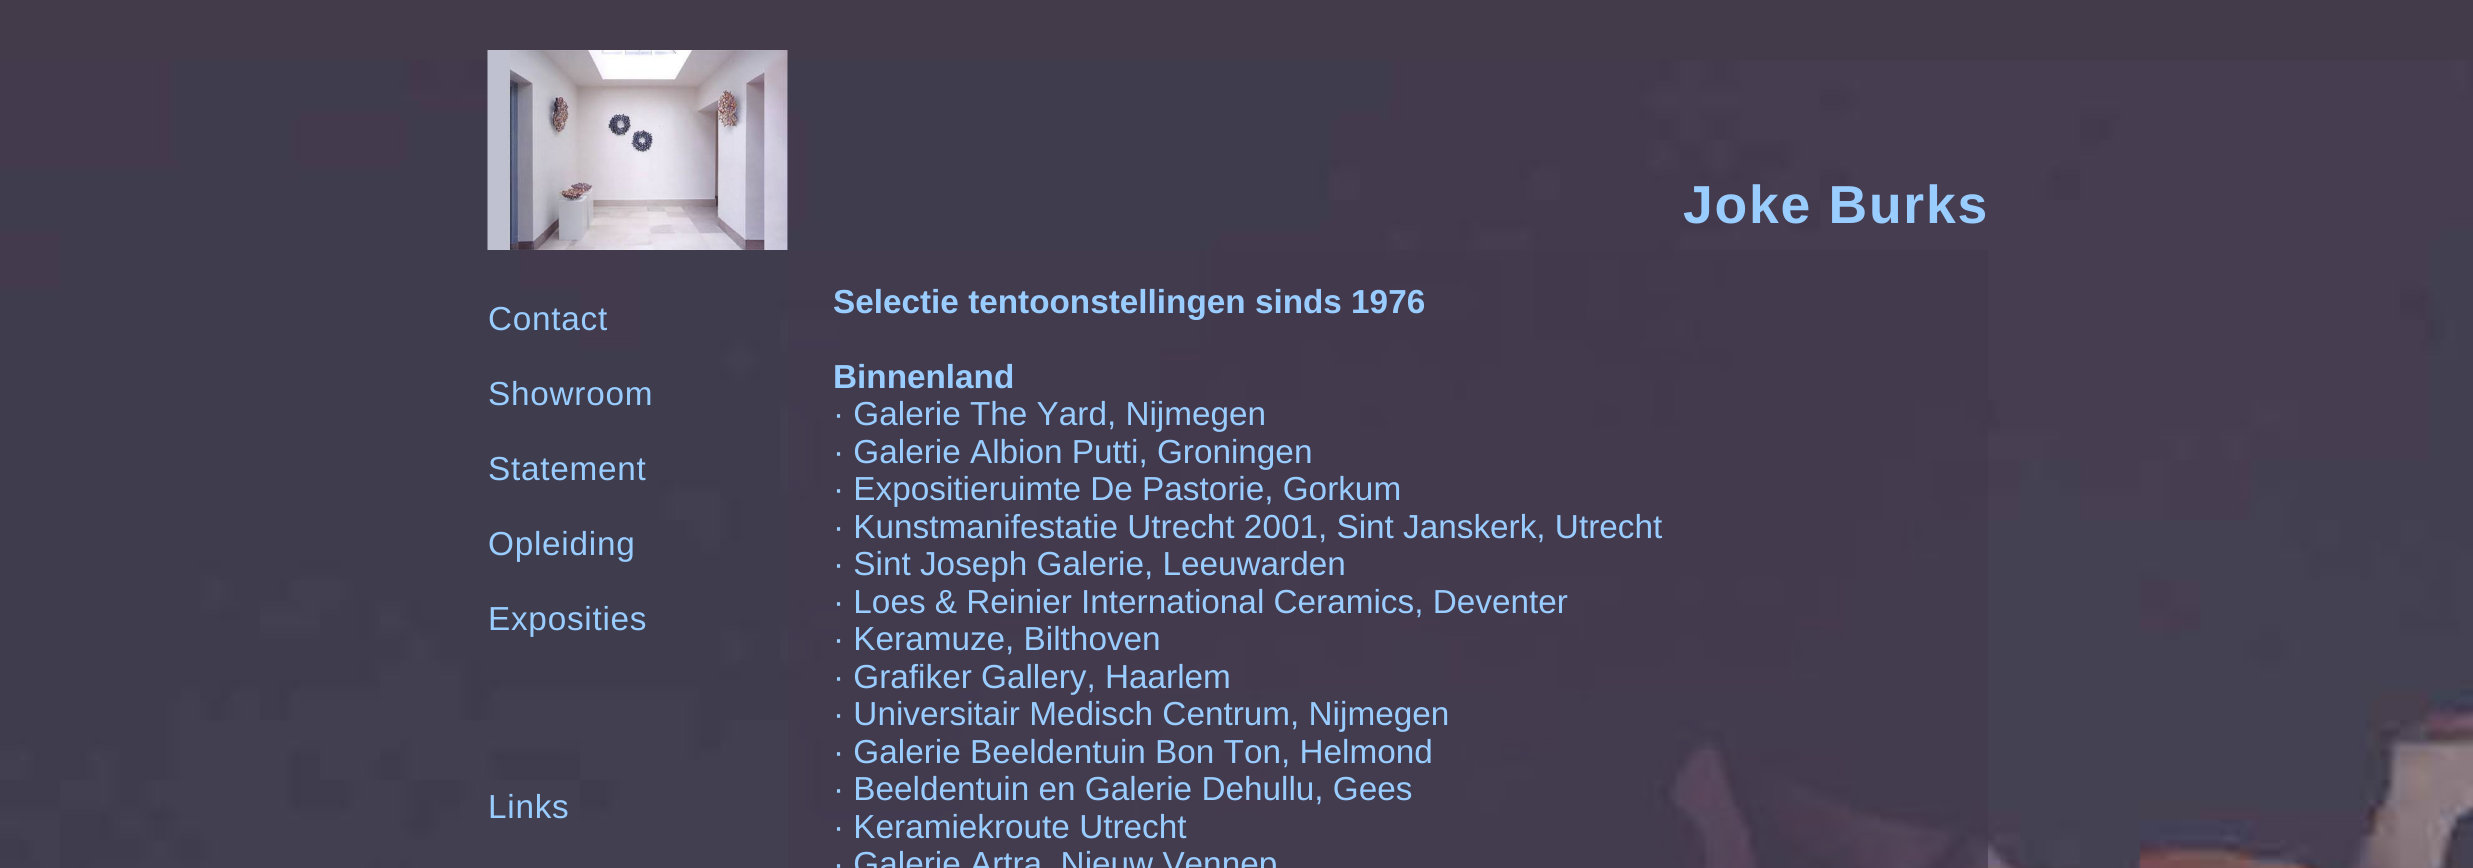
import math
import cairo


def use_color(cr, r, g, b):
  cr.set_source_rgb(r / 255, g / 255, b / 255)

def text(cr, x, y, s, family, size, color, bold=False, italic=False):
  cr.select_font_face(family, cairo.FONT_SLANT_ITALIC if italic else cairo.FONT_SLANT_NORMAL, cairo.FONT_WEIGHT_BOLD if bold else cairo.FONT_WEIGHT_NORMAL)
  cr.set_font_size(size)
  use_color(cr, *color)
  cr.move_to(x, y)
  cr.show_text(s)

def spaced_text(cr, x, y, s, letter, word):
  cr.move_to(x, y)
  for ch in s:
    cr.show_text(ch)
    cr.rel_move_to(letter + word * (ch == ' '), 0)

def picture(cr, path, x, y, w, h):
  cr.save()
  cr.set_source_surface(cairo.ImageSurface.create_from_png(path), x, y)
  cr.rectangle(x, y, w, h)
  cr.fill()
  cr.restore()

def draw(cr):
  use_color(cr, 255, 255, 255)
  cr.paint()
  picture(cr, "img_01.png", 0, 0, 2473, 868)
  picture(cr, "img_02.png", 487, 50, 301, 200)
  cr.set_source_rgba(0.263, 0.227, 0.302, 0.7)
  cr.rectangle(788, 250, 1200, 618)
  cr.fill()
  cr.select_font_face("Liberation Sans", cairo.FONT_SLANT_NORMAL, cairo.FONT_WEIGHT_BOLD)
  cr.set_font_size(53.5)
  use_color(cr, 153, 204, 255)
  spaced_text(cr, 1683, 223, "Joke Burks", 1.75, 0)
  cr.select_font_face("Liberation Sans")
  cr.set_font_size(33.3)
  spaced_text(cr, 488, 330, "Contact", 0.75, 0)
  spaced_text(cr, 488, 405, "Showroom", 0.75, 0)
  spaced_text(cr, 488, 480, "Statement", 0.75, 0)
  spaced_text(cr, 488, 555, "Opleiding", 0.75, 0)
  spaced_text(cr, 488, 630, "Exposities", 0.75, 0)
  spaced_text(cr, 488, 818, "Links", 0.75, 0)
  text(cr, 833, 313, "Selectie tentoonstellingen sinds 1976", "Liberation Sans", 33.3, (153, 204, 255), bold=True)
  text(cr, 833, 388, "Binnenland", "Liberation Sans", 33.3, (153, 204, 255), bold=True)
  text(cr, 833, 425, "· Galerie The Yard, Nijmegen", "Liberation Sans", 33.3, (153, 204, 255))
  text(cr, 833, 463, "· Galerie Albion Putti, Groningen", "Liberation Sans", 33.3, (153, 204, 255))
  text(cr, 833, 500, "· Expositieruimte De Pastorie, Gorkum", "Liberation Sans", 33.3, (153, 204, 255))
  text(cr, 833, 538, "· Kunstmanifestatie Utrecht 2001, Sint Janskerk, Utrecht", "Liberation Sans", 33.3, (153, 204, 255))
  text(cr, 833, 575, "· Sint Joseph Galerie, Leeuwarden", "Liberation Sans", 33.3, (153, 204, 255))
  text(cr, 833, 613, "· Loes & Reinier International Ceramics, Deventer", "Liberation Sans", 33.3, (153, 204, 255))
  text(cr, 833, 650, "· Keramuze, Bilthoven", "Liberation Sans", 33.3, (153, 204, 255))
  text(cr, 833, 688, "· Grafiker Gallery, Haarlem", "Liberation Sans", 33.3, (153, 204, 255))
  text(cr, 833, 725, "· Universitair Medisch Centrum, Nijmegen", "Liberation Sans", 33.3, (153, 204, 255))
  text(cr, 833, 763, "· Galerie Beeldentuin Bon Ton, Helmond", "Liberation Sans", 33.3, (153, 204, 255))
  text(cr, 833, 800, "· Beeldentuin en Galerie Dehullu, Gees", "Liberation Sans", 33.3, (153, 204, 255))
  text(cr, 833, 838, "· Keramiekroute Utrecht", "Liberation Sans", 33.3, (153, 204, 255))
  text(cr, 833, 875, "· Galerie Artra, Nieuw Vennep", "Liberation Sans", 33.3, (153, 204, 255))


surface = cairo.ImageSurface(cairo.FORMAT_RGB24, 2473, 868)
cr = cairo.Context(surface)
options = cairo.FontOptions()
options.set_hint_metrics(cairo.HINT_METRICS_OFF)
options.set_hint_style(cairo.HINT_STYLE_NONE)
cr.set_font_options(options)
cr.set_miter_limit(4)
draw(cr)
surface.write_to_png("out.png")
